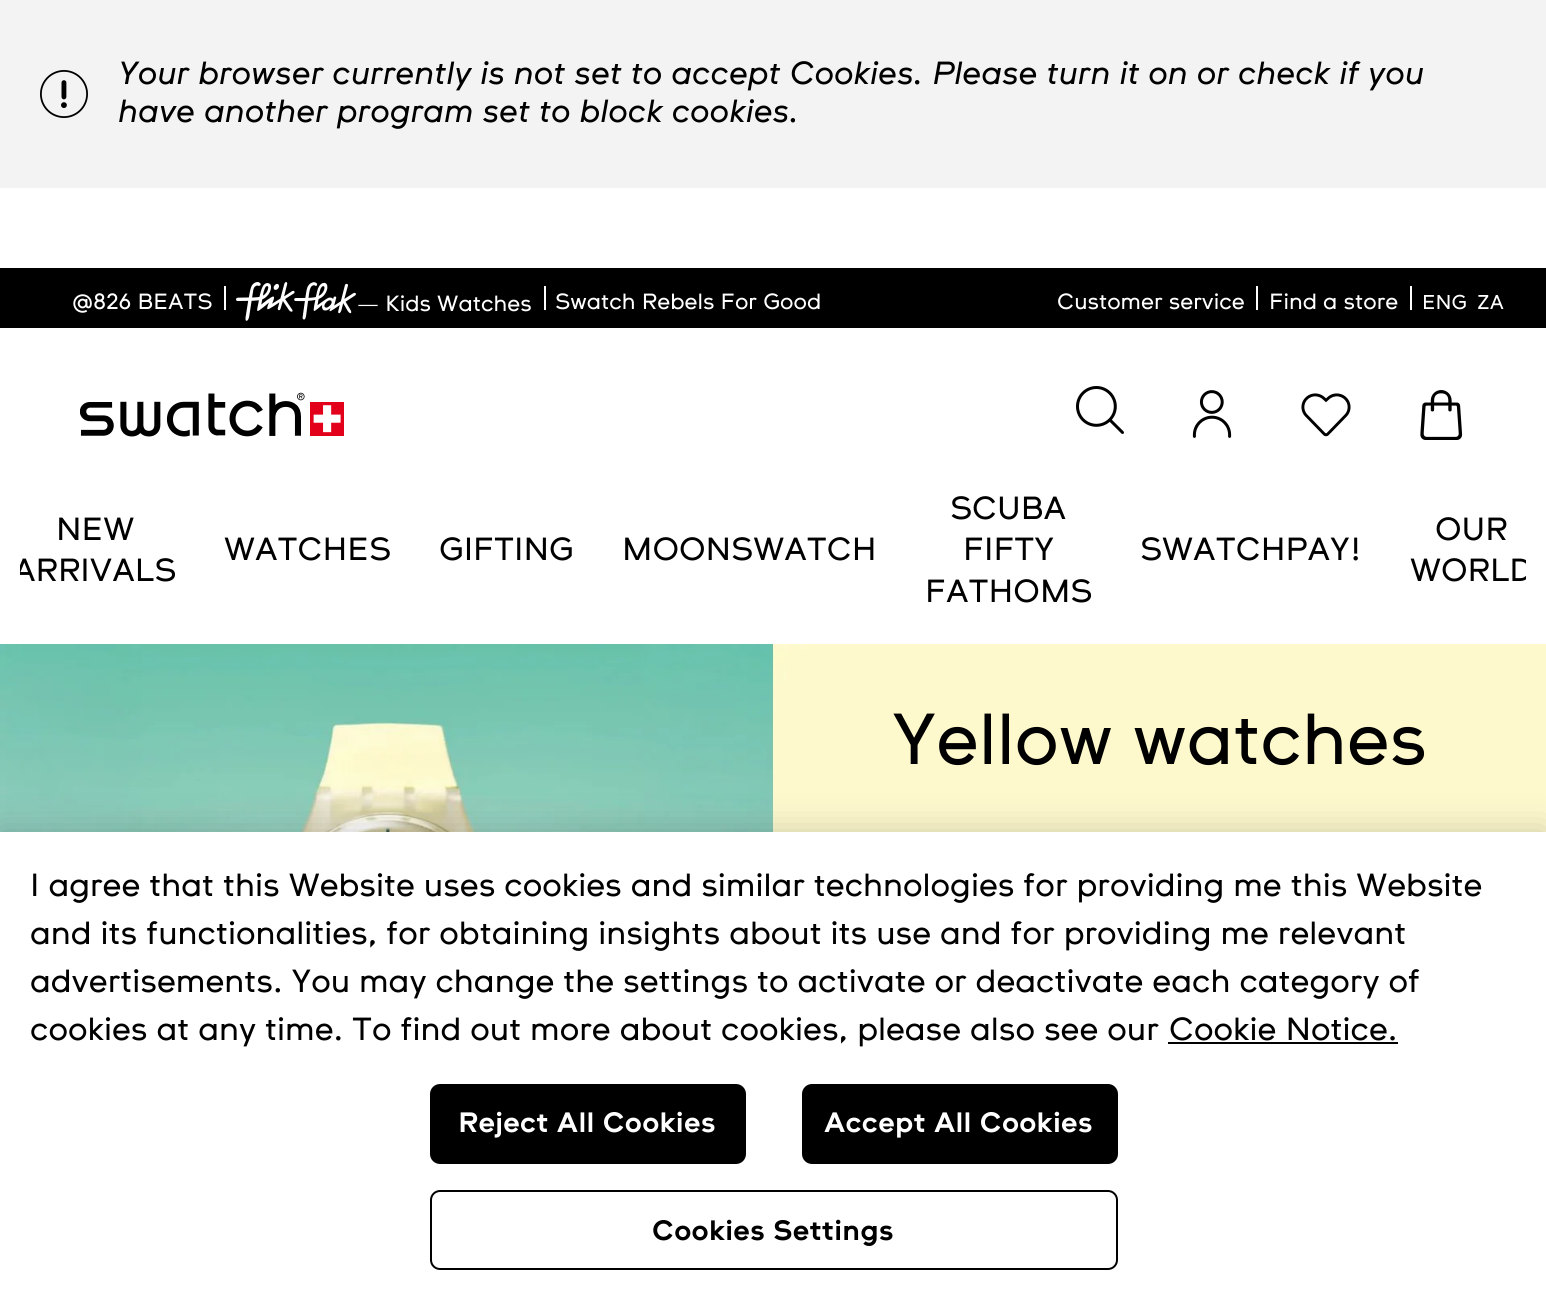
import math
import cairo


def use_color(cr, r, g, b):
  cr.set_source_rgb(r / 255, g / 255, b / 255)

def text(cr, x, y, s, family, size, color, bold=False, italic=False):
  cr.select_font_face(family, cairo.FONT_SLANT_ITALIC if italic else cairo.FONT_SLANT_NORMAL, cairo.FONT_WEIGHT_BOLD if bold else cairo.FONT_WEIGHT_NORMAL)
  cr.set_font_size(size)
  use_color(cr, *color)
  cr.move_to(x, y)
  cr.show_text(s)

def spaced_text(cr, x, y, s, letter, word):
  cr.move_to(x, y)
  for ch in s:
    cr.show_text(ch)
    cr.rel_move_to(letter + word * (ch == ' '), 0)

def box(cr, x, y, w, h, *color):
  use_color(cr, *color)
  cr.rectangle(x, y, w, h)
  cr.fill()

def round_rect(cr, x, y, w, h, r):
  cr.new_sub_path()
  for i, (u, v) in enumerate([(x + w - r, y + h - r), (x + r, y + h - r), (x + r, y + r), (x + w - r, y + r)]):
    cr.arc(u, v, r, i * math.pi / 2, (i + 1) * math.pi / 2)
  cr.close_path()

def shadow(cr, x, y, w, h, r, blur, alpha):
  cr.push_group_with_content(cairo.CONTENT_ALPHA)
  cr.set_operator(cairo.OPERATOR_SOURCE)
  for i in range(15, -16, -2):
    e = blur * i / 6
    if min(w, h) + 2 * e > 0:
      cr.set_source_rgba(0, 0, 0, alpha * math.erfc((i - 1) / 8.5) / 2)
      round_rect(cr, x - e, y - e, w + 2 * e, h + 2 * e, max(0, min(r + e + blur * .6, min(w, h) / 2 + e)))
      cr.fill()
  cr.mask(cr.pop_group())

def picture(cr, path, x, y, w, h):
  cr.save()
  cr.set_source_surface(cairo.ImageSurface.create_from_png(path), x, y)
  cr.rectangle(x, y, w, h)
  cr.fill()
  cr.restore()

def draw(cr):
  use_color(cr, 255, 255, 255)
  cr.paint()
  box(cr, 0, 0, 1546, 188, 243, 243, 243)
  picture(cr, "img_01.png", 40, 70, 48, 48)
  box(cr, 0, 268, 1546, 60, 0, 0, 0)
  box(cr, 224, 286, 2, 24, 255, 255, 255)
  picture(cr, "img_02.png", 236, 282, 120, 39)
  box(cr, 544, 286, 2, 24, 255, 255, 255)
  box(cr, 1256, 286, 2, 24, 255, 255, 255)
  box(cr, 1410, 286, 2, 24, 255, 255, 255)
  picture(cr, "img_03.png", 80, 392, 264, 45)
  picture(cr, "img_04.png", 1076, 386, 48, 48)
  picture(cr, "img_05.png", 1192, 390, 40, 48)
  picture(cr, "img_06.png", 1301, 393, 50, 44)
  picture(cr, "img_07.png", 1420, 390, 43, 50)
  picture(cr, "img_08.png", 0, 644, 1546, 188)
  use_color(cr, 0, 0, 0)
  shadow(cr, 0, 832, 1546, 468, 0, 18, 0.2)
  box(cr, 0, 832, 1546, 468, 255, 255, 255)
  box(cr, 1168, 1042, 230, 2, 0, 0, 0)
  round_rect(cr, 431, 1085, 314, 78, 9)
  cr.fill_preserve()
  cr.stroke()
  round_rect(cr, 803, 1085, 314, 78, 9)
  cr.fill_preserve()
  cr.stroke()
  round_rect(cr, 431, 1191, 686, 78, 9)
  cr.stroke()
  text(cr, 118, 84, "Your browser currently is not set to accept Cookies. Please turn it on or check if you", "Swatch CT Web", 32, (0, 0, 0), italic=True)
  text(cr, 118, 122, "have another program set to block cookies.", "Swatch CT Web", 32, (0, 0, 0), italic=True)
  text(cr, 72, 309, "@826 BEATS", "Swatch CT", 22, (255, 255, 255))
  text(cr, 357, 311, "— Kids Watches", "Swatch CT", 22, (255, 255, 255))
  text(cr, 555, 309, "Swatch Rebels For Good", "Swatch CT", 22, (255, 255, 255))
  text(cr, 1057, 309, "Customer service", "Swatch CT", 22, (255, 255, 255))
  text(cr, 1269, 309, "Find a store", "Swatch CT", 22, (255, 255, 255))
  text(cr, 1422, 309, "ENG", "Swatch CT", 20, (255, 255, 255))
  text(cr, 1477, 309, "ZA", "Swatch CT", 20, (255, 255, 255))
  text(cr, 56, 540, "NEW", "Swatch CT", 32, (0, 0, 0))
  cr.save()
  cr.rectangle(20, 458, 1506, 186)
  cr.clip()
  text(cr, 13, 581, "ARRIVALS", "Swatch CT", 32, (0, 0, 0))
  cr.restore()
  text(cr, 224, 560, "WATCHES", "Swatch CT", 32, (0, 0, 0))
  text(cr, 439, 560, "GIFTING", "Swatch CT", 32, (0, 0, 0))
  text(cr, 622, 560, "MOONSWATCH", "Swatch CT", 32, (0, 0, 0))
  text(cr, 950, 519, "SCUBA", "Swatch CT", 32, (0, 0, 0))
  text(cr, 963, 560, "FIFTY", "Swatch CT", 32, (0, 0, 0))
  text(cr, 925, 602, "FATHOMS", "Swatch CT", 32, (0, 0, 0))
  text(cr, 1140, 560, "SWATCHPAY!", "Swatch CT", 32, (0, 0, 0))
  text(cr, 1435, 540, "OUR", "Swatch CT", 32, (0, 0, 0))
  cr.save()
  cr.rectangle(20, 458, 1506, 186)
  cr.clip()
  text(cr, 1410, 581, "WORLD", "Swatch CT", 32, (0, 0, 0))
  cr.restore()
  text(cr, 892, 764, "Yellow watches", "Swatch CT", 72, (0, 0, 0))
  text(cr, 30, 896, "I agree that this Website uses cookies and similar technologies for providing me this Website", "Swatch CT", 32, (0, 0, 0))
  text(cr, 30, 944, "and its functionalities, for obtaining insights about its use and for providing me relevant", "Swatch CT", 32, (0, 0, 0))
  text(cr, 30, 992, "advertisements. You may change the settings to activate or deactivate each category of", "Swatch CT", 32, (0, 0, 0))
  text(cr, 30, 1040, "cookies at any time. To find out more about cookies, please also see our", "Swatch CT", 32, (0, 0, 0))
  text(cr, 1169, 1040, "Cookie Notice.", "Swatch CT", 32, (0, 0, 0))
  cr.select_font_face("Swatch CT", cairo.FONT_SLANT_NORMAL, cairo.FONT_WEIGHT_BOLD)
  cr.set_font_size(28)
  use_color(cr, 255, 255, 255)
  spaced_text(cr, 458, 1132, "Reject All Cookies", 0.25, 0)
  spaced_text(cr, 824, 1132, "Accept All Cookies", 0.25, 0)
  use_color(cr, 0, 0, 0)
  spaced_text(cr, 652, 1240, "Cookies Settings", 0.25, 0)


surface = cairo.ImageSurface(cairo.FORMAT_RGB24, 1546, 1300)
cr = cairo.Context(surface)
options = cairo.FontOptions()
options.set_hint_metrics(cairo.HINT_METRICS_OFF)
options.set_hint_style(cairo.HINT_STYLE_NONE)
cr.set_font_options(options)
cr.set_miter_limit(4)
draw(cr)
surface.write_to_png("out.png")
